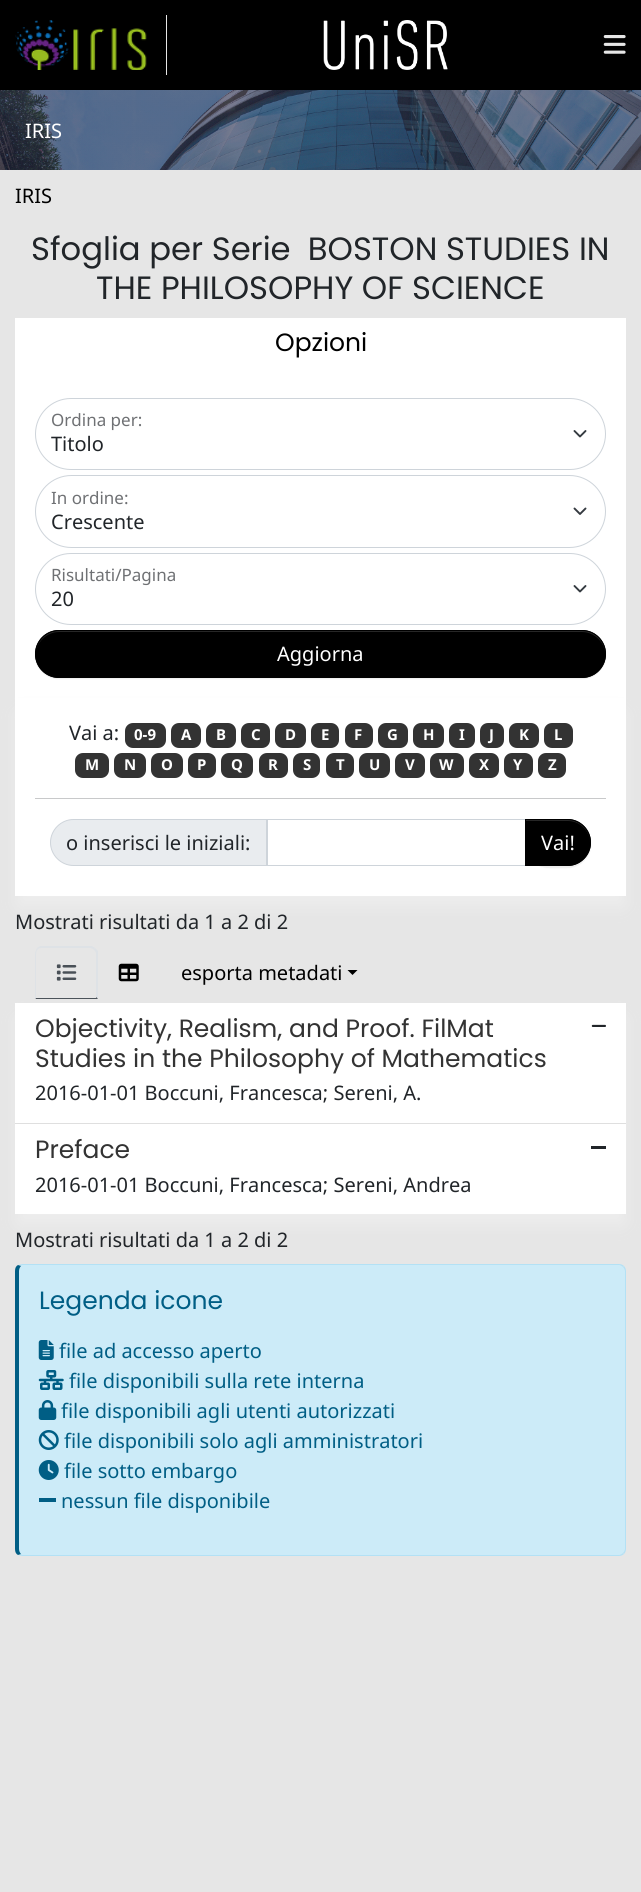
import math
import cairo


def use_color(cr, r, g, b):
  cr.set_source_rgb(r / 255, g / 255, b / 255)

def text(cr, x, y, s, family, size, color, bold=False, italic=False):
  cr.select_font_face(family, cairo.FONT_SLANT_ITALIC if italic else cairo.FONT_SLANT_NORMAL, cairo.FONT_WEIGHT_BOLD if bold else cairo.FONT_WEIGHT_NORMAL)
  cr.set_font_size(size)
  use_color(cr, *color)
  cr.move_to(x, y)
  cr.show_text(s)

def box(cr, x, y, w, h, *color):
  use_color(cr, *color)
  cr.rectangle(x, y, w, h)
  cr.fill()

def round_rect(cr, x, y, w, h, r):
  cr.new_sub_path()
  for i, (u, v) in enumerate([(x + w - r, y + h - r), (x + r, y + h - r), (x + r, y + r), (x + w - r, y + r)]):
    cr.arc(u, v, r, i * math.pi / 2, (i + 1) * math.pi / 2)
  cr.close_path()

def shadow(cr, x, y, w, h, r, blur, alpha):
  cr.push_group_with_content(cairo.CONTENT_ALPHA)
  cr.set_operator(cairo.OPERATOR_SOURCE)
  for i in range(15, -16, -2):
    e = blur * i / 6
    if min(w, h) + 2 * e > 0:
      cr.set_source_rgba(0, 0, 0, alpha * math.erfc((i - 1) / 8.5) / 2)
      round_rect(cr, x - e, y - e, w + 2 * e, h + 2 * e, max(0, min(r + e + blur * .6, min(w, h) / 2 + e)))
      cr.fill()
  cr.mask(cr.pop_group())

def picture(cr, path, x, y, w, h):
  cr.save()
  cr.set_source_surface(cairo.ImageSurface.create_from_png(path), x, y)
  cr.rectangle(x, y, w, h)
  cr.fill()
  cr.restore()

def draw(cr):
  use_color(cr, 230, 230, 230)
  cr.paint()
  box(cr, 0, 0, 641, 90, 0, 0, 0)
  box(cr, 166, 15, 1, 60, 230, 230, 230)
  picture(cr, "img_01.png", 15, 20, 132, 50)
  picture(cr, "img_02.png", 323, 20, 125, 50)
  picture(cr, "img_03.png", 603, 35, 23, 19)
  picture(cr, "img_04.png", 0, 90, 641, 80)
  box(cr, 15, 318, 611, 380, 255, 255, 255)
  cr.new_path()
  cr.move_to(574.5, 431)
  cr.line_to(580, 436.5)
  cr.line_to(585.5, 431)
  use_color(cr, 52, 58, 64)
  cr.set_line_width(1.9)
  cr.set_line_cap(cairo.LINE_CAP_ROUND)
  cr.set_line_join(cairo.LINE_JOIN_ROUND)
  cr.stroke()
  round_rect(cr, 35.5, 398.5, 570, 71, 35.5)
  use_color(cr, 206, 212, 218)
  cr.set_line_width(1)
  cr.set_line_cap(cairo.LINE_CAP_BUTT)
  cr.set_line_join(cairo.LINE_JOIN_MITER)
  cr.stroke()
  cr.new_path()
  cr.move_to(574.5, 508.5)
  cr.line_to(580, 514)
  cr.line_to(585.5, 508.5)
  use_color(cr, 52, 58, 64)
  cr.set_line_width(1.9)
  cr.set_line_cap(cairo.LINE_CAP_ROUND)
  cr.set_line_join(cairo.LINE_JOIN_ROUND)
  cr.stroke()
  round_rect(cr, 35.5, 475.5, 570, 72, 36)
  use_color(cr, 206, 212, 218)
  cr.set_line_width(1)
  cr.set_line_cap(cairo.LINE_CAP_BUTT)
  cr.set_line_join(cairo.LINE_JOIN_MITER)
  cr.stroke()
  cr.new_path()
  cr.move_to(574.5, 586)
  cr.line_to(580, 591.5)
  cr.line_to(585.5, 586)
  use_color(cr, 52, 58, 64)
  cr.set_line_width(1.9)
  cr.set_line_cap(cairo.LINE_CAP_ROUND)
  cr.set_line_join(cairo.LINE_JOIN_ROUND)
  cr.stroke()
  round_rect(cr, 35.5, 553.5, 570, 71, 35.5)
  use_color(cr, 206, 212, 218)
  cr.set_line_width(1)
  cr.set_line_cap(cairo.LINE_CAP_BUTT)
  cr.set_line_join(cairo.LINE_JOIN_MITER)
  cr.stroke()
  use_color(cr, 0, 0, 0)
  shadow(cr, 35, 631, 571, 48, 24, 0.5, 0.07)
  use_color(cr, 0, 0, 0)
  round_rect(cr, 35, 630, 571, 48, 24)
  cr.fill()
  use_color(cr, 38, 38, 38)
  cr.new_path()
  cr.move_to(59, 632)
  cr.line_to(582, 632)
  cr.curve_to(595, 632, 605, 643, 605, 654)
  cr.curve_to(605, 643, 598, 634, 587, 631)
  cr.line_to(582, 631)
  cr.line_to(58, 631)
  cr.curve_to(46, 631, 36, 642, 36, 654)
  cr.curve_to(36, 643, 46, 632, 59, 632)
  cr.close_path()
  cr.fill()
  round_rect(cr, 35.5, 630.5, 570, 47, 23.5)
  use_color(cr, 0, 0, 0)
  cr.stroke()
  use_color(cr, 238, 238, 238)
  shadow(cr, 19, 714, 604, 191, 0, 9.5, 1)
  box(cr, 15, 698, 611, 198, 255, 255, 255)
  use_color(cr, 51, 51, 51)
  round_rect(cr, 125, 723, 41, 25, 8)
  cr.fill()
  round_rect(cr, 171, 723, 30, 25, 8)
  cr.fill()
  round_rect(cr, 206, 723, 30, 25, 8)
  cr.fill()
  round_rect(cr, 241, 723, 29, 25, 8)
  cr.fill()
  round_rect(cr, 275, 723, 31, 25, 8)
  cr.fill()
  round_rect(cr, 311, 723, 28, 25, 8)
  cr.fill()
  round_rect(cr, 345, 723, 28, 25, 8)
  cr.fill()
  round_rect(cr, 378, 723, 30, 25, 8)
  cr.fill()
  round_rect(cr, 413, 723, 31, 25, 8)
  cr.fill()
  round_rect(cr, 449, 723, 26, 25, 8)
  cr.fill()
  round_rect(cr, 480, 723, 24, 25, 8)
  cr.fill()
  round_rect(cr, 509, 723, 30, 25, 8)
  cr.fill()
  round_rect(cr, 544, 723, 29, 25, 8)
  cr.fill()
  round_rect(cr, 75, 753, 34, 25, 8)
  cr.fill()
  round_rect(cr, 114, 753, 32, 25, 8)
  cr.fill()
  round_rect(cr, 151, 753, 32, 25, 8)
  cr.fill()
  round_rect(cr, 188, 753, 28, 25, 8)
  cr.fill()
  round_rect(cr, 221, 753, 32, 25, 8)
  cr.fill()
  round_rect(cr, 259, 753, 29, 25, 8)
  cr.fill()
  round_rect(cr, 293, 753, 27, 25, 8)
  cr.fill()
  round_rect(cr, 326, 753, 28, 25, 8)
  cr.fill()
  round_rect(cr, 359, 753, 31, 25, 8)
  cr.fill()
  round_rect(cr, 395, 753, 30, 25, 8)
  cr.fill()
  round_rect(cr, 430, 753, 34, 25, 8)
  cr.fill()
  round_rect(cr, 469, 753, 30, 25, 8)
  cr.fill()
  round_rect(cr, 504, 753, 29, 25, 8)
  cr.fill()
  round_rect(cr, 538, 753, 28, 25, 8)
  cr.fill()
  box(cr, 35, 798, 571, 1, 200, 201, 202)
  use_color(cr, 233, 236, 239)
  cr.new_path()
  cr.move_to(73.5, 819.5)
  cr.line_to(267.5, 819.5)
  cr.line_to(267.5, 865.5)
  cr.line_to(73.5, 865.5)
  cr.curve_to(61, 865.5, 50.5, 855, 50.5, 842.5)
  cr.curve_to(50.5, 830, 61, 819.5, 73.5, 819.5)
  cr.close_path()
  cr.fill_preserve()
  use_color(cr, 206, 212, 218)
  cr.stroke()
  cr.rectangle(266.5, 819.5, 259, 46)
  cr.stroke()
  use_color(cr, 0, 0, 0)
  shadow(cr, 525, 820, 66, 48, 24, 0.5, 0.07)
  use_color(cr, 0, 0, 0)
  cr.new_path()
  cr.move_to(525, 819)
  cr.line_to(567.5, 819)
  cr.curve_to(580.5, 819, 591, 829.5, 591, 842.5)
  cr.curve_to(591, 855.5, 580.5, 866, 567.5, 866)
  cr.line_to(525, 866)
  cr.close_path()
  cr.fill()
  use_color(cr, 38, 38, 38)
  cr.new_path()
  cr.move_to(526, 821)
  cr.line_to(568, 821)
  cr.curve_to(580, 821, 590, 831, 590, 843)
  cr.curve_to(590, 832, 583, 823, 572, 820)
  cr.line_to(526, 820)
  cr.close_path()
  cr.fill()
  cr.new_path()
  cr.move_to(525.5, 819.5)
  cr.line_to(567.5, 819.5)
  cr.curve_to(580, 819.5, 590.5, 830, 590.5, 842.5)
  cr.curve_to(590.5, 855, 580, 865.5, 567.5, 865.5)
  cr.line_to(525.5, 865.5)
  cr.close_path()
  use_color(cr, 0, 0, 0)
  cr.stroke()
  use_color(cr, 222, 226, 230)
  cr.new_path()
  cr.move_to(42, 948)
  cr.curve_to(41, 948, 39, 948, 38, 949)
  cr.line_to(37, 948)
  cr.line_to(40, 946)
  cr.line_to(92, 946)
  cr.line_to(95, 948)
  cr.line_to(94, 950)
  cr.curve_to(93, 949, 92, 948, 90, 948)
  cr.close_path()
  cr.fill()
  cr.new_path()
  cr.move_to(95, 948)
  cr.line_to(98, 951)
  cr.line_to(98, 999)
  cr.line_to(96, 997)
  cr.line_to(96, 954)
  cr.curve_to(96, 952, 95, 951, 94, 950)
  cr.close_path()
  cr.fill()
  use_color(cr, 73, 80, 87)
  cr.new_path()
  cr.move_to(98, 999)
  cr.line_to(96, 997)
  cr.line_to(96, 998)
  cr.line_to(36, 998)
  cr.line_to(35, 999)
  cr.close_path()
  cr.fill()
  use_color(cr, 222, 226, 230)
  cr.new_path()
  cr.move_to(35, 999)
  cr.line_to(36, 998)
  cr.line_to(36, 954)
  cr.curve_to(36, 952, 37, 950, 38, 949)
  cr.line_to(37, 948)
  cr.curve_to(36, 950, 35, 952, 35, 954)
  cr.close_path()
  cr.fill()
  picture(cr, "img_05.png", 56, 964, 21, 17)
  picture(cr, "img_06.png", 118, 963, 21, 19)
  use_color(cr, 0, 0, 0)
  cr.new_path()
  cr.move_to(347.5, 970)
  cr.line_to(357.5, 970)
  cr.line_to(352.5, 975)
  cr.close_path()
  cr.fill()
  use_color(cr, 238, 238, 238)
  shadow(cr, 19, 1019, 604, 204, 0, 9.5, 1)
  box(cr, 15, 1003, 611, 211, 255, 255, 255)
  box(cr, 15, 1123, 611, 1, 223, 223, 223)
  picture(cr, "img_07.png", 591, 1024, 15, 3)
  box(cr, 591, 1146, 15, 3, 33, 37, 41)
  use_color(cr, 204, 235, 248)
  cr.new_path()
  cr.move_to(22, 1265)
  cr.line_to(619, 1265)
  cr.curve_to(622, 1265, 625, 1268, 625, 1271)
  cr.line_to(625, 1549)
  cr.curve_to(625, 1552, 622, 1555, 619, 1555)
  cr.line_to(22, 1555)
  cr.curve_to(20, 1555, 19, 1552, 19, 1549)
  cr.line_to(19, 1271)
  cr.curve_to(19, 1268, 20, 1265, 22, 1265)
  cr.close_path()
  cr.fill()
  use_color(cr, 179, 225, 245)
  cr.new_path()
  cr.move_to(22, 1264)
  cr.line_to(18, 1265)
  cr.line_to(21, 1266)
  cr.line_to(22, 1265)
  cr.line_to(619, 1265)
  cr.curve_to(620, 1265, 622, 1266, 623, 1267)
  cr.line_to(624, 1266)
  cr.curve_to(623, 1265, 621, 1264, 619, 1264)
  cr.close_path()
  cr.fill()
  cr.new_path()
  cr.move_to(624, 1266)
  cr.curve_to(625, 1267, 626, 1269, 626, 1271)
  cr.line_to(626, 1549)
  cr.curve_to(626, 1551, 625, 1553, 624, 1554)
  cr.line_to(623, 1553)
  cr.curve_to(624, 1552, 625, 1550, 625, 1549)
  cr.line_to(625, 1271)
  cr.curve_to(625, 1270, 624, 1268, 623, 1267)
  cr.close_path()
  cr.fill()
  cr.new_path()
  cr.move_to(624, 1554)
  cr.curve_to(623, 1555, 621, 1556, 619, 1556)
  cr.line_to(22, 1556)
  cr.line_to(18, 1555)
  cr.line_to(21, 1554)
  cr.line_to(22, 1555)
  cr.line_to(619, 1555)
  cr.curve_to(620, 1555, 622, 1554, 623, 1553)
  cr.close_path()
  cr.fill()
  use_color(cr, 0, 94, 133)
  cr.new_path()
  cr.move_to(15, 1271)
  cr.line_to(15, 1549)
  cr.curve_to(15, 1552, 16, 1554, 18, 1555)
  cr.line_to(21, 1554)
  cr.curve_to(20, 1553, 19, 1551, 19, 1549)
  cr.line_to(19, 1271)
  cr.curve_to(19, 1269, 20, 1267, 21, 1266)
  cr.line_to(18, 1265)
  cr.curve_to(16, 1266, 15, 1268, 15, 1271)
  cr.close_path()
  cr.fill()
  picture(cr, "img_08.png", 38, 1340, 16, 20)
  picture(cr, "img_09.png", 38, 1370, 26, 20)
  picture(cr, "img_10.png", 38, 1400, 19, 20)
  picture(cr, "img_11.png", 38, 1430, 21, 20)
  picture(cr, "img_12.png", 38, 1460, 21, 20)
  box(cr, 39, 1498, 17, 4, 0, 94, 133)
  text(cr, 25, 138, "IRIS", "Noto Sans", 20, (255, 255, 255))
  text(cr, 15, 203, "IRIS", "Noto Sans", 20, (0, 0, 0))
  text(cr, 31, 260, "Sfoglia per Serie  BOSTON STUDIES IN", "Poppins", 32.25, (33, 37, 41))
  text(cr, 96, 299, "THE PHILOSOPHY OF SCIENCE", "Poppins", 32.25, (33, 37, 41))
  text(cr, 275, 351, "Opzioni", "Poppins", 25, (0, 0, 0))
  text(cr, 51, 426, "Ordina per:", "Noto Sans", 17, (111, 113, 116))
  text(cr, 51, 451, "Titolo", "Noto Sans", 20, (33, 37, 41))
  text(cr, 51, 504, "In ordine:", "Noto Sans", 17, (111, 113, 116))
  text(cr, 51, 529, "Crescente", "Noto Sans", 20, (33, 37, 41))
  text(cr, 51, 581, "Risultati/Pagina", "Noto Sans", 17, (111, 113, 116))
  text(cr, 51, 606, "20", "Noto Sans", 20, (33, 37, 41))
  text(cr, 277, 661, "Aggiorna", "Noto Sans", 20, (255, 255, 255))
  text(cr, 69, 740, "Vai a:", "Noto Sans", 20, (33, 37, 41))
  text(cr, 134, 740, "0-9", "Noto Sans", 15, (255, 255, 255), bold=True)
  text(cr, 181, 740, "A", "Noto Sans", 15, (255, 255, 255), bold=True)
  text(cr, 216, 740, "B", "Noto Sans", 15, (255, 255, 255), bold=True)
  text(cr, 251, 740, "C", "Noto Sans", 15, (255, 255, 255), bold=True)
  text(cr, 285, 740, "D", "Noto Sans", 15, (255, 255, 255), bold=True)
  text(cr, 321, 740, "E", "Noto Sans", 15, (255, 255, 255), bold=True)
  text(cr, 354, 740, "F", "Noto Sans", 15, (255, 255, 255), bold=True)
  text(cr, 387, 740, "G", "Noto Sans", 15, (255, 255, 255), bold=True)
  text(cr, 423, 740, "H", "Noto Sans", 15, (255, 255, 255), bold=True)
  text(cr, 459, 740, "I", "Noto Sans", 15, (255, 255, 255), bold=True)
  text(cr, 489, 740, "J", "Noto Sans", 15, (255, 255, 255), bold=True)
  text(cr, 519, 740, "K", "Noto Sans", 15, (255, 255, 255), bold=True)
  text(cr, 554, 740, "L", "Noto Sans", 15, (255, 255, 255), bold=True)
  text(cr, 85, 770, "M", "Noto Sans", 15, (255, 255, 255), bold=True)
  text(cr, 124, 770, "N", "Noto Sans", 15, (255, 255, 255), bold=True)
  text(cr, 161, 770, "O", "Noto Sans", 15, (255, 255, 255), bold=True)
  text(cr, 197, 770, "P", "Noto Sans", 15, (255, 255, 255), bold=True)
  text(cr, 231, 770, "Q", "Noto Sans", 15, (255, 255, 255), bold=True)
  text(cr, 268, 770, "R", "Noto Sans", 15, (255, 255, 255), bold=True)
  text(cr, 303, 770, "S", "Noto Sans", 15, (255, 255, 255), bold=True)
  text(cr, 336, 770, "T", "Noto Sans", 15, (255, 255, 255), bold=True)
  text(cr, 369, 770, "U", "Noto Sans", 15, (255, 255, 255), bold=True)
  text(cr, 405, 770, "V", "Noto Sans", 15, (255, 255, 255), bold=True)
  text(cr, 439, 770, "W", "Noto Sans", 15, (255, 255, 255), bold=True)
  text(cr, 479, 770, "X", "Noto Sans", 15, (255, 255, 255), bold=True)
  text(cr, 513, 770, "Y", "Noto Sans", 15, (255, 255, 255), bold=True)
  text(cr, 548, 770, "Z", "Noto Sans", 15, (255, 255, 255), bold=True)
  text(cr, 66, 850, "o inserisci le iniziali:", "Noto Sans", 20, (33, 37, 41))
  text(cr, 541, 850, "Vai!", "Noto Sans", 20, (255, 255, 255))
  text(cr, 15, 929, "Mostrati risultati da 1 a 2 di 2", "Noto Sans", 20, (33, 37, 41))
  text(cr, 181, 980, "esporta metadati", "Noto Sans", 20, (0, 0, 0))
  text(cr, 35, 1037, "Objectivity, Realism, and Proof. FilMat", "Poppins", 25, (51, 51, 51))
  text(cr, 35, 1067, "Studies in the Philosophy of Mathematics", "Poppins", 25, (51, 51, 51))
  text(cr, 35, 1100, "2016-01-01 Boccuni, Francesca; Sereni, A.", "Noto Sans", 20, (33, 37, 41))
  text(cr, 35, 1158, "Preface", "Poppins", 25, (51, 51, 51))
  text(cr, 35, 1192, "2016-01-01 Boccuni, Francesca; Sereni, Andrea", "Noto Sans", 20, (33, 37, 41))
  text(cr, 15, 1247, "Mostrati risultati da 1 a 2 di 2", "Noto Sans", 20, (33, 37, 41))
  text(cr, 39, 1309, "Legenda icone", "Poppins", 25, (0, 94, 133))
  text(cr, 59, 1358, "file ad accesso aperto", "Noto Sans", 20, (0, 94, 133))
  text(cr, 69, 1388, "file disponibili sulla rete interna", "Noto Sans", 20, (0, 94, 133))
  text(cr, 61, 1418, "file disponibili agli utenti autorizzati", "Noto Sans", 20, (0, 94, 133))
  text(cr, 64, 1448, "file disponibili solo agli amministratori", "Noto Sans", 20, (0, 94, 133))
  text(cr, 64, 1478, "file sotto embargo", "Noto Sans", 20, (0, 94, 133))
  text(cr, 61, 1508, "nessun file disponibile", "Noto Sans", 20, (0, 94, 133))


surface = cairo.ImageSurface(cairo.FORMAT_RGB24, 641, 1892)
cr = cairo.Context(surface)
options = cairo.FontOptions()
options.set_hint_metrics(cairo.HINT_METRICS_OFF)
options.set_hint_style(cairo.HINT_STYLE_NONE)
cr.set_font_options(options)
cr.set_miter_limit(4)
draw(cr)
surface.write_to_png("out.png")
